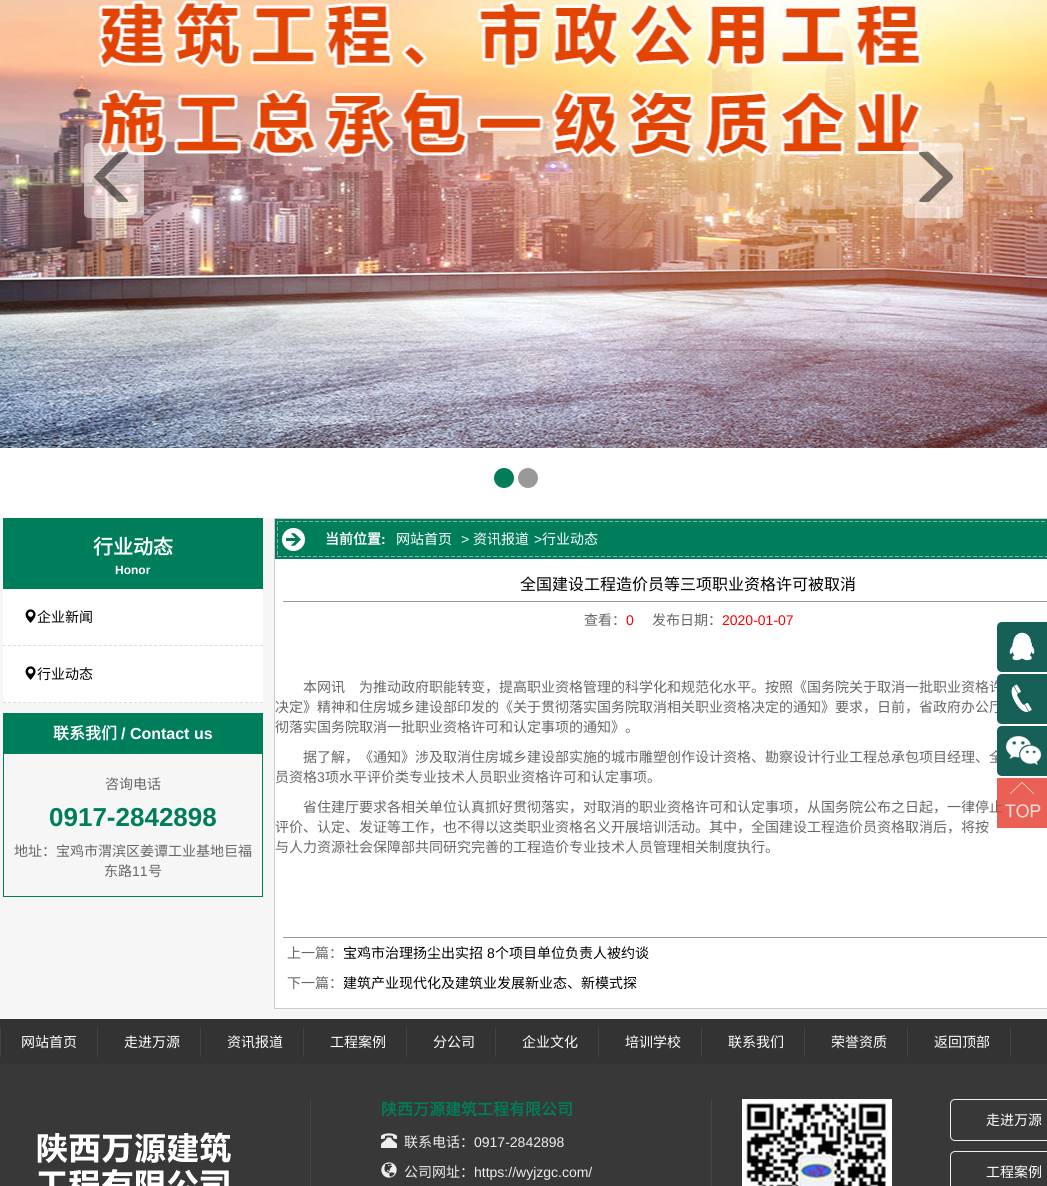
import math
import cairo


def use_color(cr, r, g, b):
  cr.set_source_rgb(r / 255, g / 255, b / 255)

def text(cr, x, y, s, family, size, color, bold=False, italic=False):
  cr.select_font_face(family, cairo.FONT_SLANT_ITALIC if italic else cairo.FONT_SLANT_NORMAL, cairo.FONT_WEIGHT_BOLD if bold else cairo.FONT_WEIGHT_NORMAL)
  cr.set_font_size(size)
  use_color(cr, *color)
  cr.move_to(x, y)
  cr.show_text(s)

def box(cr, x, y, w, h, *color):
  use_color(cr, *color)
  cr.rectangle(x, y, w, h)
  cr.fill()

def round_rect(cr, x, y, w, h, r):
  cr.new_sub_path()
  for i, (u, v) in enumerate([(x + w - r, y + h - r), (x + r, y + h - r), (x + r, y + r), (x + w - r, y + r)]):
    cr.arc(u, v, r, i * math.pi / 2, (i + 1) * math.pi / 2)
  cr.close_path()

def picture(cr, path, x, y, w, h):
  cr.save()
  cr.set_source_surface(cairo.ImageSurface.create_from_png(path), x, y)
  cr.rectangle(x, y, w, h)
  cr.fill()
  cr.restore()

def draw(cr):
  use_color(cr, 255, 255, 255)
  cr.paint()
  picture(cr, "img_01.png", 0, 0, 1047, 448)
  cr.set_source_rgba(1, 1, 1, 0.5)
  round_rect(cr, 84, 143, 60, 75, 5)
  cr.fill()
  picture(cr, "img_02.png", 94, 152, 35, 50)
  round_rect(cr, 903, 143, 60, 75, 5)
  cr.fill()
  cr.set_source_rgba(0, 0, 0, 0.5)
  cr.new_path()
  cr.move_to(920, 152)
  cr.curve_to(929, 152, 927, 150, 933, 156)
  cr.line_to(941, 164)
  cr.curve_to(957, 180, 957, 174, 941, 190)
  cr.line_to(933, 198)
  cr.curve_to(928, 203, 930, 202, 922, 202)
  cr.curve_to(916, 202, 921, 199, 923, 196)
  cr.line_to(943, 177)
  cr.line_to(919, 154)
  cr.curve_to(919, 153, 919, 152, 920, 152)
  cr.close_path()
  cr.fill()
  use_color(cr, 0, 125, 90)
  cr.arc(504, 478, 10, 0, 2 * math.pi)
  cr.fill()
  use_color(cr, 153, 153, 153)
  cr.arc(528, 478, 10, 0, 2 * math.pi)
  cr.fill()
  box(cr, 0, 518, 1047, 501, 246, 246, 246)
  box(cr, 3, 589, 260, 114, 255, 255, 255)
  box(cr, 3, 518, 260, 71, 0, 125, 90)
  cr.new_path()
  cr.move_to(3, 645.5)
  cr.line_to(263, 645.5)
  use_color(cr, 221, 221, 221)
  cr.set_line_width(1)
  cr.set_dash([3, 2.04])
  cr.stroke()
  picture(cr, "img_03.png", 25, 609, 11, 14)
  cr.new_path()
  cr.move_to(3, 702.5)
  cr.line_to(263, 702.5)
  cr.stroke()
  picture(cr, "img_03.png", 25, 666, 11, 14)
  cr.rectangle(3.5, 713.5, 259, 183)
  use_color(cr, 0, 125, 90)
  cr.set_dash([])
  cr.stroke()
  box(cr, 4, 714, 258, 40, 0, 125, 90)
  box(cr, 275, 559, 772, 449, 255, 255, 255)
  cr.rectangle(274.5, 518.5, 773, 490)
  use_color(cr, 204, 204, 204)
  cr.stroke()
  box(cr, 275, 519, 772, 1, 0, 125, 90)
  picture(cr, "img_04.png", 275, 520, 772, 39)
  box(cr, 283, 601, 764, 1, 153, 153, 153)
  box(cr, 283, 937, 764, 1, 153, 153, 153)
  use_color(cr, 23, 96, 87)
  cr.new_path()
  cr.move_to(1002, 622)
  cr.line_to(1047, 622)
  cr.line_to(1047, 672)
  cr.line_to(1002, 672)
  cr.curve_to(999, 672, 997, 670, 997, 667)
  cr.line_to(997, 627)
  cr.curve_to(997, 624, 999, 622, 1002, 622)
  cr.close_path()
  cr.fill()
  picture(cr, "img_05.png", 1009, 632, 26, 29)
  box(cr, 0, 1064, 1047, 122, 56, 56, 56)
  box(cr, 0, 1019, 1047, 45, 51, 51, 51)
  box(cr, 97, 1027, 1, 30, 68, 68, 68)
  box(cr, 0, 1027, 1, 30, 68, 68, 68)
  box(cr, 200, 1027, 1, 30, 68, 68, 68)
  box(cr, 303, 1027, 1, 30, 68, 68, 68)
  box(cr, 406, 1027, 1, 30, 68, 68, 68)
  box(cr, 495, 1027, 1, 30, 68, 68, 68)
  box(cr, 598, 1027, 1, 30, 68, 68, 68)
  box(cr, 701, 1027, 1, 30, 68, 68, 68)
  box(cr, 804, 1027, 1, 30, 68, 68, 68)
  box(cr, 907, 1027, 1, 30, 68, 68, 68)
  box(cr, 1010, 1027, 1, 30, 68, 68, 68)
  picture(cr, "img_09.png", 37, 1132, 194, 54)
  box(cr, 711, 1099, 1, 87, 70, 70, 70)
  box(cr, 310, 1099, 1, 87, 70, 70, 70)
  picture(cr, "img_10.png", 381, 1133, 16, 15)
  picture(cr, "img_11.png", 381, 1162, 16, 16)
  picture(cr, "img_12.png", 742, 1099, 150, 87)
  round_rect(cr, 950.5, 1099.5, 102, 41, 4.5)
  use_color(cr, 238, 238, 238)
  cr.stroke()
  round_rect(cr, 950.5, 1151.5, 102, 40, 4.5)
  cr.stroke()
  text(cr, 93, 554, "行业动态", "Noto Sans CJK SC", 20, (255, 255, 255), bold=True)
  text(cr, 115, 574, "Honor", "Liberation Sans", 12, (255, 255, 255), bold=True)
  text(cr, 37, 622, "企业新闻", "Noto Sans CJK SC", 14, (0, 0, 0))
  text(cr, 37, 679, "行业动态", "Noto Sans CJK SC", 14, (0, 0, 0))
  text(cr, 53, 739, "联系我们", "Noto Sans CJK SC", 16, (255, 255, 255), bold=True)
  text(cr, 121, 739, "/ Contact us", "Liberation Sans", 16, (255, 255, 255), bold=True)
  text(cr, 105, 789, "咨询电话", "Noto Sans CJK SC", 14, (102, 102, 102))
  text(cr, 49, 826, "0917-2842898", "Liberation Sans", 26, (0, 125, 90), bold=True)
  text(cr, 14, 856, "地址：宝鸡市渭滨区姜谭工业基地巨福", "Noto Sans CJK SC", 14, (102, 102, 102))
  text(cr, 104, 876, "东路", "Noto Sans CJK SC", 14, (102, 102, 102))
  text(cr, 132, 876, "11", "Liberation Sans", 14, (102, 102, 102))
  text(cr, 148, 876, "号", "Noto Sans CJK SC", 14, (102, 102, 102))
  text(cr, 325, 544, "当前位置", "Noto Sans CJK SC", 14, (255, 255, 255), bold=True)
  text(cr, 381, 544, ":", "Liberation Sans", 14, (255, 255, 255), bold=True)
  text(cr, 396, 544, "网站首页", "Noto Sans CJK SC", 14, (255, 255, 255))
  text(cr, 461, 544, ">", "Liberation Sans", 14, (255, 255, 255))
  text(cr, 473, 544, "资讯报道", "Noto Sans CJK SC", 14, (255, 255, 255))
  text(cr, 534, 544, ">", "Liberation Sans", 14, (255, 255, 255))
  text(cr, 542, 544, "行业动态", "Noto Sans CJK SC", 14, (255, 255, 255))
  text(cr, 520, 590, "全国建设工程造价员等三项职业资格许可被取消", "Noto Sans CJK SC", 16, (0, 0, 0))
  text(cr, 584, 625, "查看：", "Noto Sans CJK SC", 14, (102, 102, 102))
  text(cr, 626, 625, "0", "Liberation Sans", 14, (255, 0, 0))
  text(cr, 652, 625, "发布日期：", "Noto Sans CJK SC", 14, (102, 102, 102))
  text(cr, 722, 625, "2020-01-07", "Liberation Sans", 14, (255, 0, 0))
  text(cr, 303, 692, "本网讯　为推动政府职能转变，提高职业资格管理的科学化和规范化水平。按照《国务院关于取消一批职业资格许", "Noto Sans CJK SC", 14, (102, 102, 102))
  text(cr, 275, 712, "决定》精神和住房城乡建设部印发的《关于贯彻落实国务院取消相关职业资格决定的通知》要求，日前，省政府办公厅", "Noto Sans CJK SC", 14, (102, 102, 102))
  text(cr, 275, 732, "彻落实国务院取消一批职业资格许可和认定事项的通知》。", "Noto Sans CJK SC", 14, (102, 102, 102))
  text(cr, 303, 762, "据了解，《通知》涉及取消住房城乡建设部实施的城市雕塑创作设计资格、勘察设计行业工程总承包项目经理、全", "Noto Sans CJK SC", 14, (102, 102, 102))
  text(cr, 275, 782, "员资格", "Noto Sans CJK SC", 14, (102, 102, 102))
  text(cr, 317, 782, "3", "Liberation Sans", 14, (102, 102, 102))
  text(cr, 325, 782, "项水平评价类专业技术人员职业资格许可和认定事项。", "Noto Sans CJK SC", 14, (102, 102, 102))
  text(cr, 303, 812, "省住建厅要求各相关单位认真抓好贯彻落实，对取消的职业资格许可和认定事项，从国务院公布之日起，一律停止", "Noto Sans CJK SC", 14, (102, 102, 102))
  text(cr, 275, 832, "评价、认定、发证等工作，也不得以这类职业资格名义开展培训活动。其中，全国建设工程造价员资格取消后，将按", "Noto Sans CJK SC", 14, (102, 102, 102))
  text(cr, 275, 852, "与人力资源社会保障部共同研究完善的工程造价专业技术人员管理相关制度执行。", "Noto Sans CJK SC", 14, (102, 102, 102))
  text(cr, 287, 958, "上一篇：", "Noto Sans CJK SC", 14, (102, 102, 102))
  text(cr, 343, 958, "宝鸡市治理扬尘出实招", "Noto Sans CJK SC", 14, (0, 0, 0))
  text(cr, 487, 958, "8", "Liberation Sans", 14, (0, 0, 0))
  text(cr, 495, 958, "个项目单位负责人被约谈", "Noto Sans CJK SC", 14, (0, 0, 0))
  text(cr, 287, 988, "下一篇：", "Noto Sans CJK SC", 14, (102, 102, 102))
  text(cr, 343, 988, "建筑产业现代化及建筑业发展新业态、新模式探", "Noto Sans CJK SC", 14, (0, 0, 0))
  use_color(cr, 23, 96, 87)
  cr.new_path()
  cr.move_to(1002, 674)
  cr.line_to(1047, 674)
  cr.line_to(1047, 724)
  cr.line_to(1002, 724)
  cr.curve_to(999, 724, 997, 722, 997, 719)
  cr.line_to(997, 679)
  cr.curve_to(997, 676, 999, 674, 1002, 674)
  cr.close_path()
  cr.fill()
  picture(cr, "img_06.png", 1011, 684, 21, 29)
  cr.new_path()
  cr.move_to(1002, 726)
  cr.line_to(1047, 726)
  cr.line_to(1047, 776)
  cr.line_to(1002, 776)
  cr.curve_to(999, 776, 997, 774, 997, 771)
  cr.line_to(997, 731)
  cr.curve_to(997, 728, 999, 726, 1002, 726)
  cr.close_path()
  cr.fill()
  picture(cr, "img_07.png", 1006, 736, 35, 29)
  cr.set_source_rgba(0.894, 0.224, 0.165, 0.8)
  cr.rectangle(997, 778, 50, 50)
  cr.fill()
  picture(cr, "img_08.png", 1005, 782, 36, 36)
  text(cr, 21, 1047, "网站首页", "Noto Sans CJK SC", 14, (255, 255, 255))
  text(cr, 124, 1047, "走进万源", "Noto Sans CJK SC", 14, (255, 255, 255))
  text(cr, 227, 1047, "资讯报道", "Noto Sans CJK SC", 14, (255, 255, 255))
  text(cr, 330, 1047, "工程案例", "Noto Sans CJK SC", 14, (255, 255, 255))
  text(cr, 433, 1047, "分公司", "Noto Sans CJK SC", 14, (255, 255, 255))
  text(cr, 522, 1047, "企业文化", "Noto Sans CJK SC", 14, (255, 255, 255))
  text(cr, 625, 1047, "培训学校", "Noto Sans CJK SC", 14, (255, 255, 255))
  text(cr, 728, 1047, "联系我们", "Noto Sans CJK SC", 14, (255, 255, 255))
  text(cr, 831, 1047, "荣誉资质", "Noto Sans CJK SC", 14, (255, 255, 255))
  text(cr, 934, 1047, "返回顶部", "Noto Sans CJK SC", 14, (255, 255, 255))
  text(cr, 381, 1115, "陕西万源建筑工程有限公司", "Noto Sans CJK SC", 16, (0, 125, 90), bold=True)
  text(cr, 404, 1147, "联系电话：", "Noto Sans CJK SC", 14, (238, 238, 238))
  text(cr, 474, 1147, "0917-2842898", "Liberation Sans", 14, (238, 238, 238))
  text(cr, 404, 1177, "公司网址：", "Noto Sans CJK SC", 14, (238, 238, 238))
  text(cr, 474, 1177, "https://wyjzgc.com/", "Liberation Sans", 14, (238, 238, 238))
  text(cr, 986, 1125, "走进万源", "Noto Sans CJK SC", 14, (255, 255, 255))
  text(cr, 986, 1177, "工程案例", "Noto Sans CJK SC", 14, (255, 255, 255))


surface = cairo.ImageSurface(cairo.FORMAT_RGB24, 1047, 1186)
cr = cairo.Context(surface)
options = cairo.FontOptions()
options.set_hint_metrics(cairo.HINT_METRICS_OFF)
options.set_hint_style(cairo.HINT_STYLE_NONE)
cr.set_font_options(options)
cr.set_miter_limit(4)
draw(cr)
surface.write_to_png("out.png")
